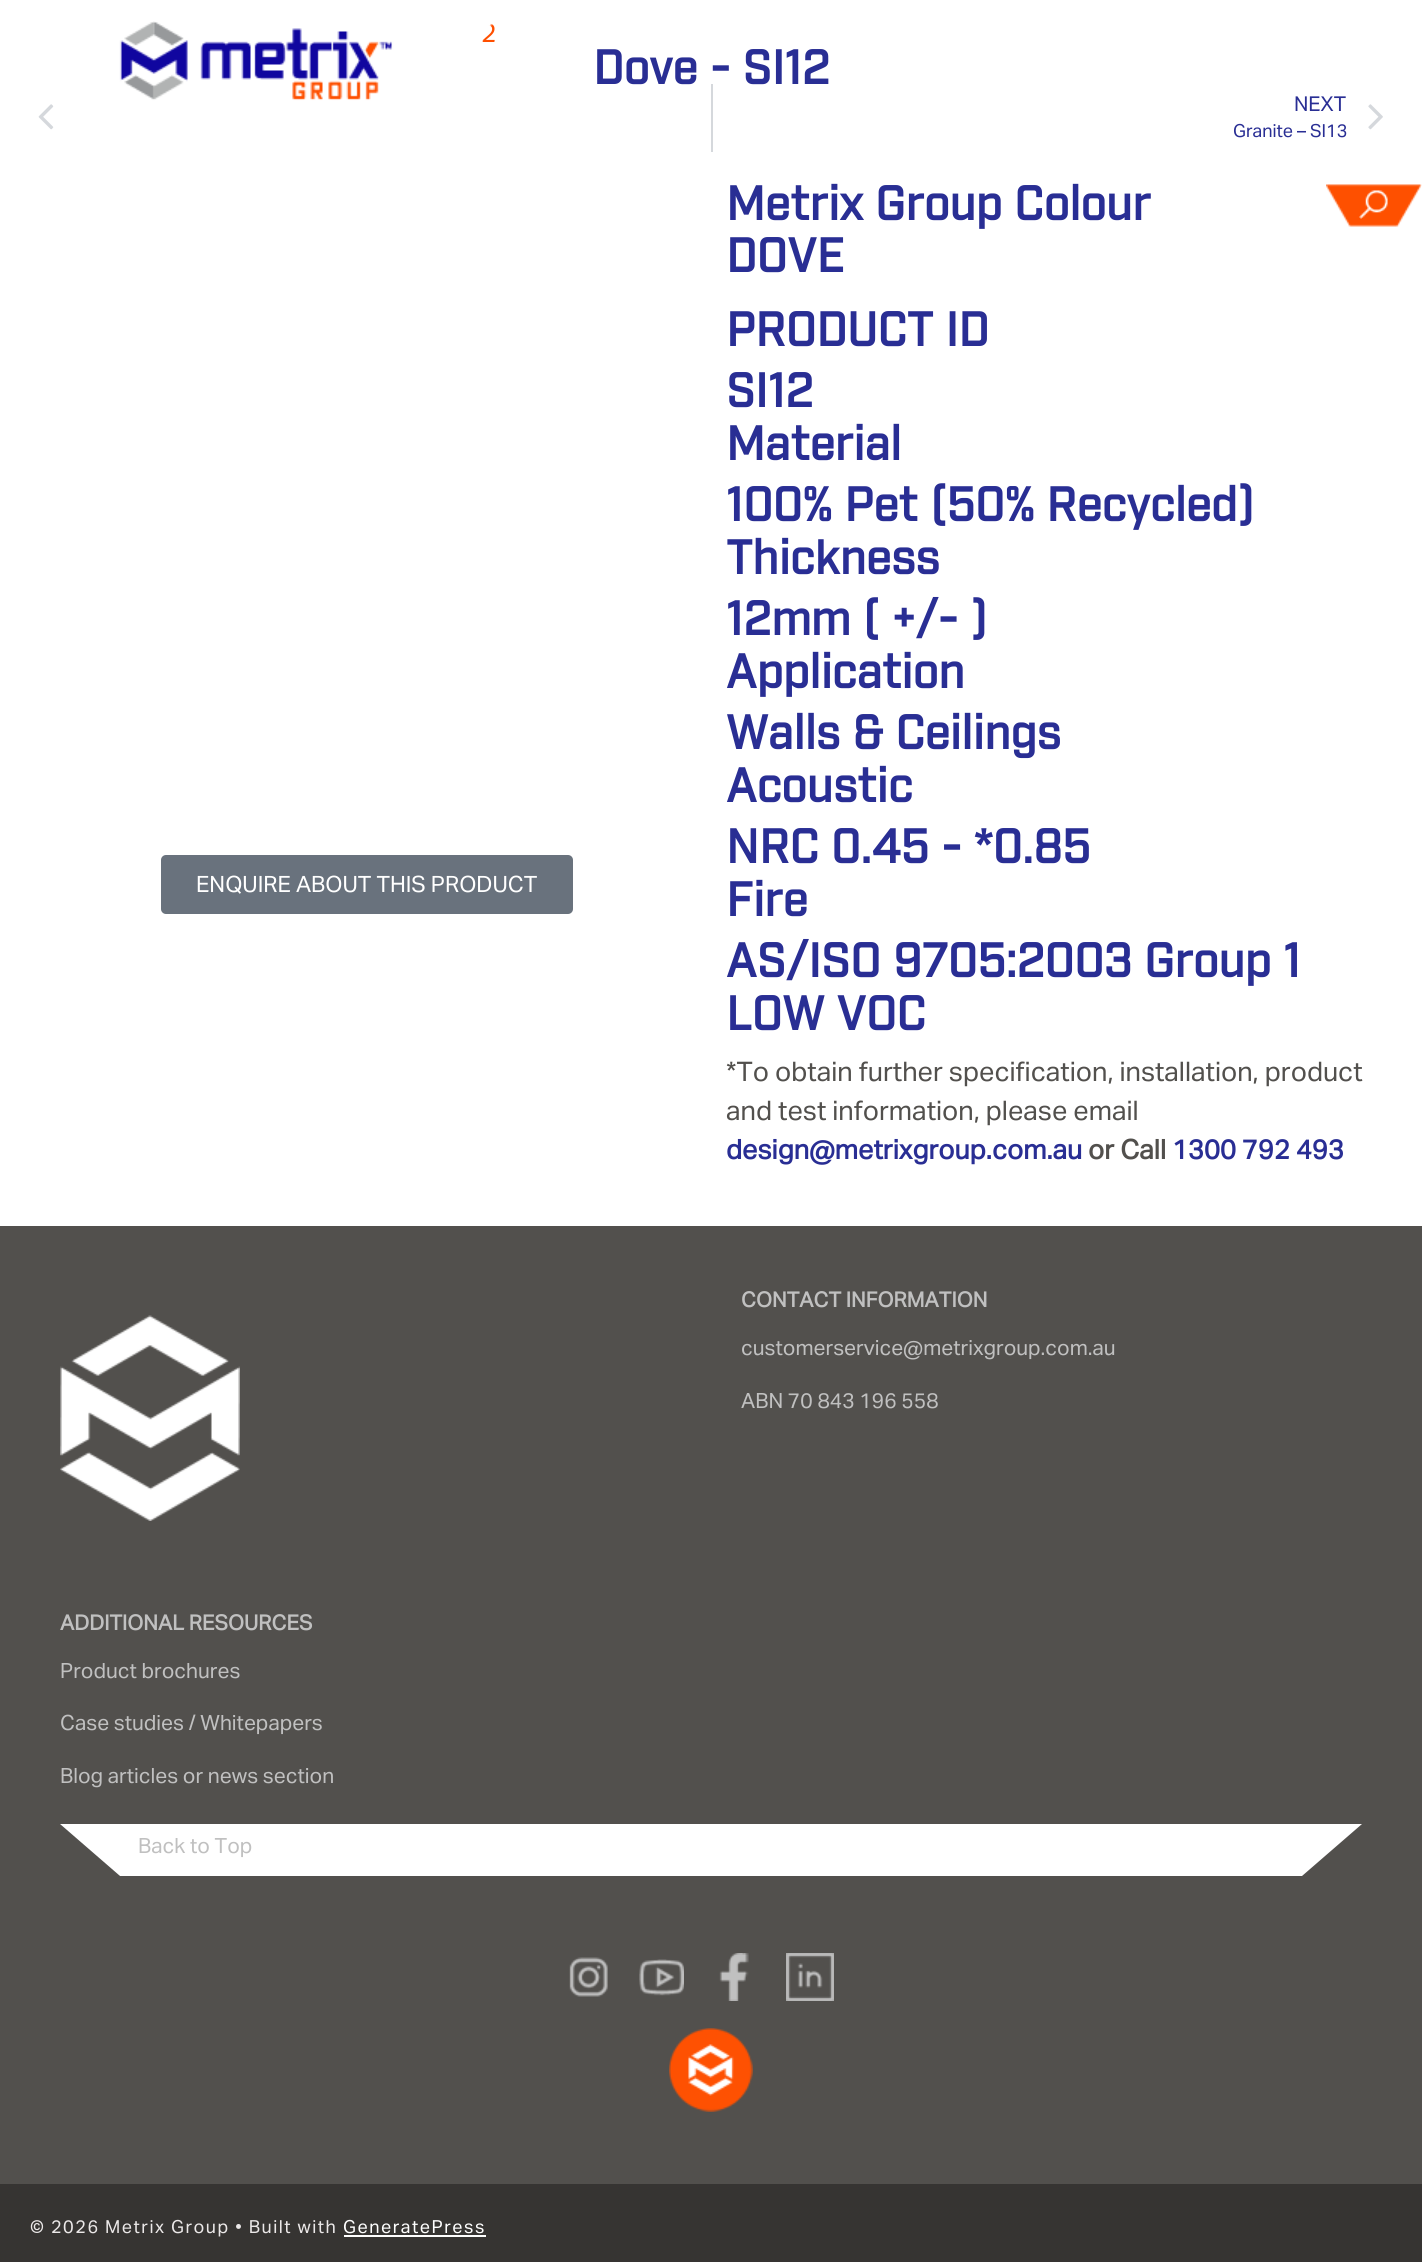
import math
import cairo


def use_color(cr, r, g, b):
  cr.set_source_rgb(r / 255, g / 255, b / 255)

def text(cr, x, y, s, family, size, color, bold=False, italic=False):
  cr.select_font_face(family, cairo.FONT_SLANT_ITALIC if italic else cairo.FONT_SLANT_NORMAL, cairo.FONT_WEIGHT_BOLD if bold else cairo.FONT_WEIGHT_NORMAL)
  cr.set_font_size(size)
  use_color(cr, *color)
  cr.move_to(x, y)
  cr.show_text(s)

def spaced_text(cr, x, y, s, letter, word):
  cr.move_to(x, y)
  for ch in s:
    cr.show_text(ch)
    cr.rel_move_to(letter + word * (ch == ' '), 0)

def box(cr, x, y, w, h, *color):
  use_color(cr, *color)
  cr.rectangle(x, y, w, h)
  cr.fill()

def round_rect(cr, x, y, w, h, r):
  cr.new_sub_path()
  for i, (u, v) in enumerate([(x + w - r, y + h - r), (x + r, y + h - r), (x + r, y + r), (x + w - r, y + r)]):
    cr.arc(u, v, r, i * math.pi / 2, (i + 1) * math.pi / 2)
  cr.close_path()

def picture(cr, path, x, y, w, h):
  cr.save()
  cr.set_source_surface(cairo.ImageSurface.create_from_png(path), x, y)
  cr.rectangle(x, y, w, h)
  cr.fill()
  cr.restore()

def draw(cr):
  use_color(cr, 255, 255, 255)
  cr.paint()
  picture(cr, "img_02.png", 1326, 184, 96, 43)
  picture(cr, "img_03.png", 1359, 190, 29, 29)
  picture(cr, "img_04.png", 38, 104, 16, 26)
  picture(cr, "img_05.png", 1368, 104, 15, 26)
  use_color(cr, 105, 114, 125)
  round_rect(cr, 161, 855, 412, 59, 5)
  cr.fill()
  box(cr, 0, 1226, 1422, 958, 82, 80, 77)
  picture(cr, "img_06.png", 60, 1315, 180, 206)
  use_color(cr, 255, 255, 255)
  cr.new_path()
  cr.move_to(60, 1824)
  cr.line_to(1362, 1824)
  cr.line_to(1302, 1876)
  cr.line_to(120, 1876)
  cr.close_path()
  cr.fill()
  picture(cr, "img_07.png", 569, 1957, 39, 40)
  picture(cr, "img_08.png", 639, 1959, 45, 37)
  picture(cr, "img_09.png", 719, 1953, 30, 48)
  picture(cr, "img_10.png", 786, 1953, 48, 48)
  picture(cr, "img_11.png", 669, 2028, 84, 84)
  box(cr, 0, 2184, 1422, 78, 54, 52, 50)
  box(cr, 344, 2235, 142, 2, 255, 255, 255)
  text(cr, 481, 42, "2", "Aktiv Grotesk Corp", 26, (255, 79, 0))
  picture(cr, "img_01.png", 77, 21, 416, 113)
  text(cr, 593, 84, "Dove - SI12", "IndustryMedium", 46.5, (41, 46, 148), bold=True)
  box(cr, 711, 84, 2, 68, 213, 216, 220)
  text(cr, 1294, 111, "NEXT", "Aktiv Grotesk Corp", 20.5, (41, 46, 148))
  text(cr, 1233, 137, "Granite – SI13", "Aktiv Grotesk Corp", 18, (41, 46, 148))
  text(cr, 196, 892, "ENQUIRE ABOUT THIS PRODUCT", "Aktiv Grotesk Corp", 22.5, (255, 255, 255))
  text(cr, 726, 220, "Metrix Group Colour", "IndustryMedium", 46.5, (41, 46, 148), bold=True)
  text(cr, 726, 272, "DOVE", "IndustryMedium", 46.5, (41, 46, 148), bold=True)
  text(cr, 726, 346, "PRODUCT ID", "IndustryMedium", 46.5, (41, 46, 148), bold=True)
  text(cr, 726, 407, "SI12", "IndustryMedium", 46.5, (41, 46, 148), bold=True)
  text(cr, 726, 460, "Material", "IndustryMedium", 46.5, (41, 46, 148), bold=True)
  text(cr, 726, 521, "100% Pet (50% Recycled)", "IndustryMedium", 46.5, (41, 46, 148), bold=True)
  text(cr, 726, 574, "Thickness", "IndustryMedium", 46.5, (41, 46, 148), bold=True)
  text(cr, 726, 635, "12mm ( +/- )", "IndustryMedium", 46.5, (41, 46, 148), bold=True)
  text(cr, 726, 688, "Application", "IndustryMedium", 46.5, (41, 46, 148), bold=True)
  text(cr, 726, 749, "Walls & Ceilings", "IndustryMedium", 46.5, (41, 46, 148), bold=True)
  text(cr, 726, 802, "Acoustic", "IndustryMedium", 46.5, (41, 46, 148), bold=True)
  text(cr, 726, 863, "NRC 0.45 - *0.85", "IndustryMedium", 46.5, (41, 46, 148), bold=True)
  text(cr, 726, 916, "Fire", "IndustryMedium", 46.5, (41, 46, 148), bold=True)
  text(cr, 726, 977, "AS/ISO 9705:2003 Group 1", "IndustryMedium", 46.5, (41, 46, 148), bold=True)
  text(cr, 726, 1030, "LOW VOC", "IndustryMedium", 46.5, (41, 46, 148), bold=True)
  text(cr, 726, 1081, "*To obtain further specification, installation, product", "Aktiv Grotesk Corp", 27, (82, 80, 77))
  text(cr, 726, 1120, "and test information, please email", "Aktiv Grotesk Corp", 27, (82, 80, 77))
  text(cr, 726, 1159, "design@metrixgroup.com.au", "Aktiv Grotesk Corp", 27, (41, 46, 148), bold=True)
  text(cr, 1088, 1159, "or Call", "Aktiv Grotesk Corp", 27, (82, 80, 77), bold=True)
  text(cr, 1172, 1159, "1300 792 493", "Aktiv Grotesk Corp", 27, (41, 46, 148), bold=True)
  text(cr, 741, 1307, "CONTACT INFORMATION", "Aktiv Grotesk Corp", 21, (192, 192, 192), bold=True)
  text(cr, 741, 1355, "customerservice@metrixgroup.com.au", "Aktiv Grotesk Corp", 21, (192, 192, 192))
  text(cr, 741, 1408, "ABN 70 843 196 558", "Aktiv Grotesk Corp", 21, (192, 192, 192))
  text(cr, 60, 1630, "ADDITIONAL RESOURCES", "Aktiv Grotesk Corp", 21, (192, 192, 192), bold=True)
  text(cr, 60, 1678, "Product brochures", "Aktiv Grotesk Corp", 21, (192, 192, 192))
  text(cr, 60, 1730, "Case studies / Whitepapers", "Aktiv Grotesk Corp", 21, (192, 192, 192))
  text(cr, 60, 1783, "Blog articles or news section", "Aktiv Grotesk Corp", 21, (192, 192, 192))
  text(cr, 138, 1853, "Back to Top", "Aktiv Grotesk Corp", 21, (192, 192, 192))
  cr.set_font_size(18)
  use_color(cr, 235, 232, 232)
  spaced_text(cr, 30, 2233, "© 2026 Metrix Group • Built with", 1.5, 0)
  use_color(cr, 255, 255, 255)
  spaced_text(cr, 343, 2233, "GeneratePress", 1.5, 0)


surface = cairo.ImageSurface(cairo.FORMAT_RGB24, 1422, 2262)
cr = cairo.Context(surface)
options = cairo.FontOptions()
options.set_hint_metrics(cairo.HINT_METRICS_OFF)
options.set_hint_style(cairo.HINT_STYLE_NONE)
cr.set_font_options(options)
cr.set_miter_limit(4)
draw(cr)
surface.write_to_png("out.png")
